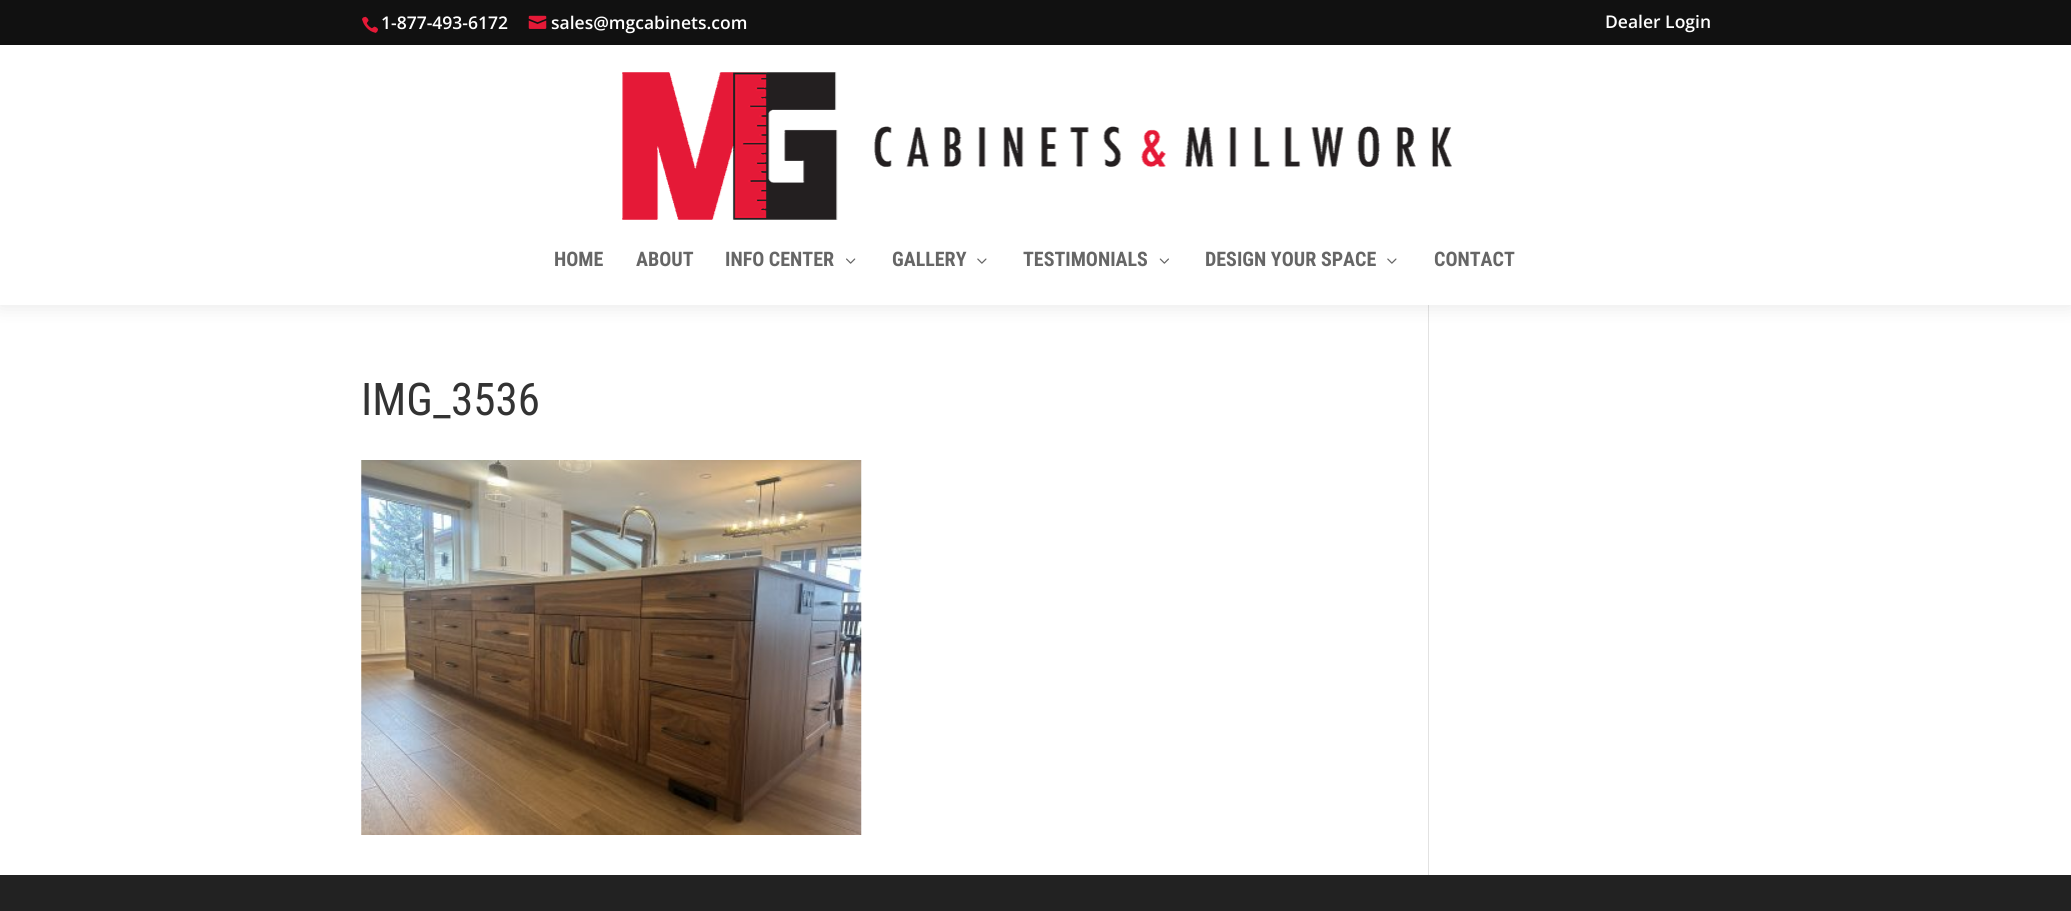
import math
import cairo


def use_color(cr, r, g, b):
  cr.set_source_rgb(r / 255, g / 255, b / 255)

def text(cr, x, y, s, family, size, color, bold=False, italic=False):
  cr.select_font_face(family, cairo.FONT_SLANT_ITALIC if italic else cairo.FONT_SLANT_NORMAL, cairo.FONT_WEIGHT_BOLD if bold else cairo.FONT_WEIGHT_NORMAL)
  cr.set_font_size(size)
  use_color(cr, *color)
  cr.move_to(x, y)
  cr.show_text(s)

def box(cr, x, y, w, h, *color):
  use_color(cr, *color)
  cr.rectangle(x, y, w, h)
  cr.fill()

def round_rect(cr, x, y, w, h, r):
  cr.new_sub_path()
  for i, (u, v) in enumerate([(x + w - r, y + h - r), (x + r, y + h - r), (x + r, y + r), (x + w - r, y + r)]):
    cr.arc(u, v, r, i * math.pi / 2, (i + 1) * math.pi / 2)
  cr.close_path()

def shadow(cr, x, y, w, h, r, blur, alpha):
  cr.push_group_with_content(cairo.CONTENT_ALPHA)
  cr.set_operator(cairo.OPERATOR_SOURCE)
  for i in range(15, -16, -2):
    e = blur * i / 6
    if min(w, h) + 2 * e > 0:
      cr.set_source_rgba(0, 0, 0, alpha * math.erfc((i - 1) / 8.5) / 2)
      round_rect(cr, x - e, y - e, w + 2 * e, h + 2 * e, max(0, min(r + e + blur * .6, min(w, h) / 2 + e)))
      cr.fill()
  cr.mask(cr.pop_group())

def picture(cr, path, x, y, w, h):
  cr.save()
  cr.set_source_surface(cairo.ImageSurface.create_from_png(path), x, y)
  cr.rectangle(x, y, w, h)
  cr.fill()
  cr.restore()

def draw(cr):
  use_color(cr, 255, 255, 255)
  cr.paint()
  box(cr, 0, 0, 2071, 45, 17, 17, 17)
  picture(cr, "img_01.png", 362, 16, 16, 17)
  picture(cr, "img_02.png", 528, 15, 19, 14)
  box(cr, 1428, 305, 1, 570, 226, 226, 226)
  cr.save()
  cr.set_fill_rule(cairo.FILL_RULE_EVEN_ODD)
  cr.new_path()
  cr.move_to(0, 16)
  cr.line_to(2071, 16)
  cr.line_to(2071, 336)
  cr.line_to(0, 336)
  cr.close_path()
  cr.move_to(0, 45)
  cr.line_to(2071, 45)
  cr.line_to(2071, 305)
  cr.line_to(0, 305)
  cr.close_path()
  cr.clip()
  use_color(cr, 0, 0, 0)
  shadow(cr, 0, 46, 2071, 260, 0, 9.5, 0.1)
  cr.restore()
  picture(cr, "img_03.png", 622, 72, 830, 148)
  picture(cr, "img_04.png", 846, 258, 10, 6)
  picture(cr, "img_05.png", 977, 258, 10, 6)
  picture(cr, "img_06.png", 1159, 258, 10, 6)
  picture(cr, "img_05.png", 1387, 258, 10, 6)
  picture(cr, "img_07.png", 361, 460, 501, 375)
  box(cr, 0, 875, 2071, 36, 34, 34, 34)
  text(cr, 381, 29, "1-877-493-6172", "Open Sans SemiBold", 17.5, (255, 255, 255))
  text(cr, 551, 29, "sales@mgcabinets.com", "Open Sans SemiBold", 17.5, (255, 255, 255))
  text(cr, 1605, 28, "Dealer Login", "Open Sans SemiBold", 17.5, (255, 255, 255))
  text(cr, 554, 266, "HOME", "Roboto Condensed", 20, (102, 102, 102), bold=True)
  text(cr, 636, 266, "ABOUT", "Roboto Condensed", 20, (102, 102, 102), bold=True)
  text(cr, 725, 266, "INFO CENTER", "Roboto Condensed", 20, (102, 102, 102), bold=True)
  text(cr, 892, 266, "GALLERY", "Roboto Condensed", 20, (102, 102, 102), bold=True)
  text(cr, 1023, 266, "TESTIMONIALS", "Roboto Condensed", 20, (102, 102, 102), bold=True)
  text(cr, 1205, 266, "DESIGN YOUR SPACE", "Roboto Condensed", 20, (102, 102, 102), bold=True)
  text(cr, 1434, 266, "CONTACT", "Roboto Condensed", 20, (102, 102, 102), bold=True)
  text(cr, 361, 415, "IMG_3536", "Roboto Condensed", 45, (51, 51, 51))


surface = cairo.ImageSurface(cairo.FORMAT_RGB24, 2071, 911)
cr = cairo.Context(surface)
options = cairo.FontOptions()
options.set_hint_metrics(cairo.HINT_METRICS_OFF)
options.set_hint_style(cairo.HINT_STYLE_NONE)
cr.set_font_options(options)
cr.set_miter_limit(4)
draw(cr)
surface.write_to_png("out.png")
